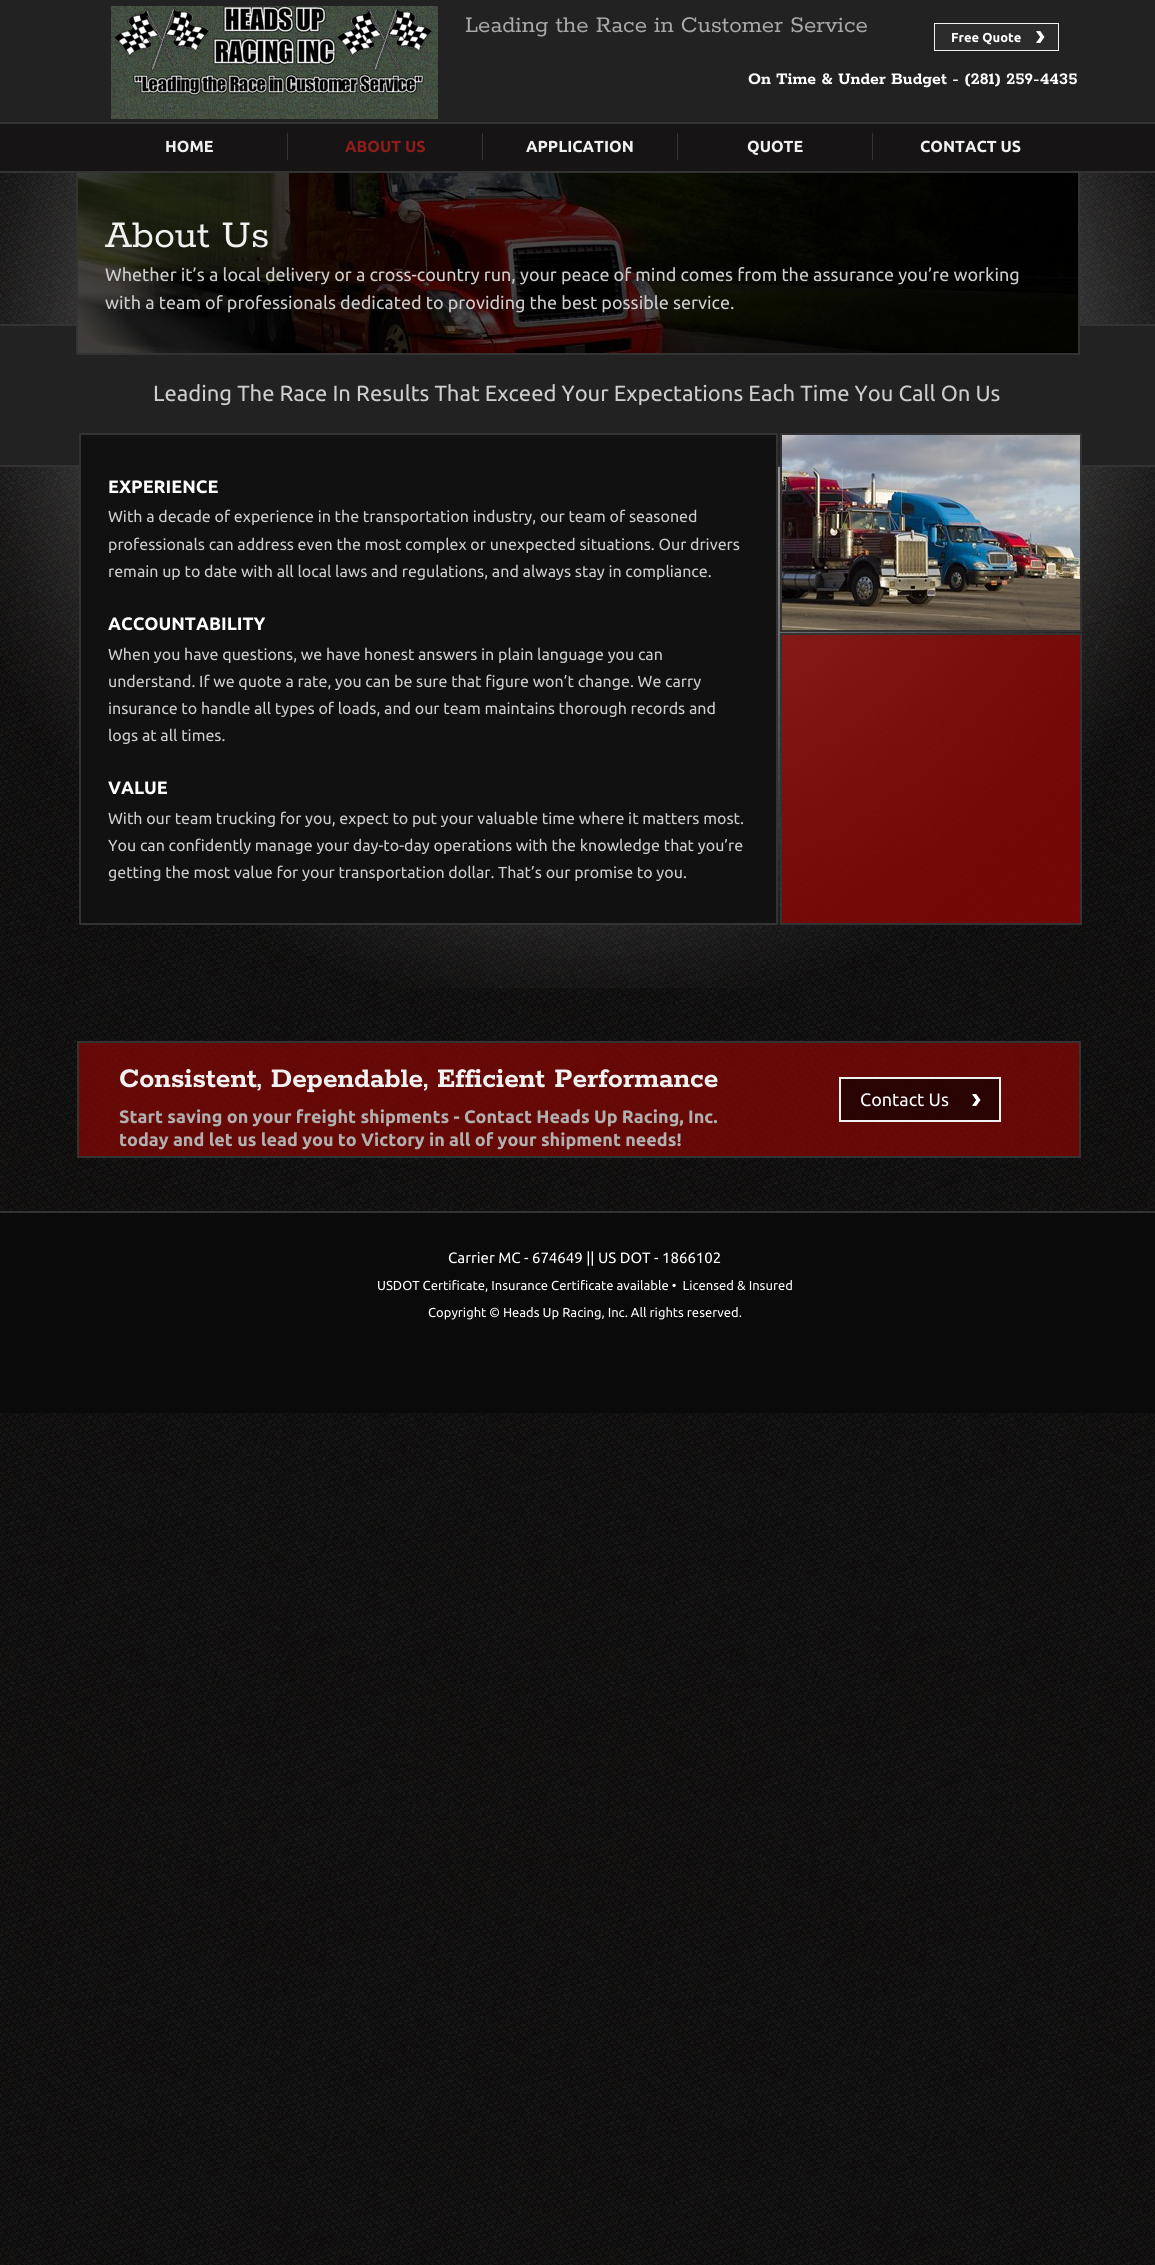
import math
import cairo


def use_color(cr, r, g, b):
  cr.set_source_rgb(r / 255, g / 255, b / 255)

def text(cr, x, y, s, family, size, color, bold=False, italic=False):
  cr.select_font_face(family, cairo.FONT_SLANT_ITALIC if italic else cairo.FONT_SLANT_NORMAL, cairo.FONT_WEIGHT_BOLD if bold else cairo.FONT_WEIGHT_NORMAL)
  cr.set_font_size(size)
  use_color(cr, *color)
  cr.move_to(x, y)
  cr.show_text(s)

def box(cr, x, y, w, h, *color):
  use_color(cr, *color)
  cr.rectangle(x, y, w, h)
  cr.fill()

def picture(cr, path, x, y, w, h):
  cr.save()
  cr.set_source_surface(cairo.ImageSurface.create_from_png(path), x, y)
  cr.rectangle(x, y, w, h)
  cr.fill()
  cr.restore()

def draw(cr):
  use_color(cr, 255, 255, 255)
  cr.paint()
  picture(cr, "img_01.png", 0, 173, 1155, 2092)
  box(cr, 0, 0, 1155, 122, 34, 34, 34)
  box(cr, 0, 122, 1155, 2, 51, 51, 51)
  picture(cr, "img_02.png", 111, 6, 327, 113)
  use_color(cr, 44, 44, 44)
  cr.rectangle(934.5, 23.5, 124, 27)
  cr.fill_preserve()
  use_color(cr, 241, 241, 241)
  cr.set_line_width(1)
  cr.stroke()
  picture(cr, "img_03.png", 1036, 31, 9, 12)
  box(cr, 0, 124, 1155, 47, 22, 20, 21)
  box(cr, 0, 171, 1155, 2, 51, 51, 51)
  box(cr, 287, 133, 1, 27, 51, 51, 51)
  box(cr, 482, 133, 1, 27, 51, 51, 51)
  box(cr, 677, 133, 1, 27, 51, 51, 51)
  box(cr, 872, 133, 1, 27, 51, 51, 51)
  picture(cr, "img_05.png", 0, 173, 1155, 815)
  use_color(cr, 34, 34, 34)
  cr.rectangle(-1, 325, 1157, 141)
  cr.fill_preserve()
  use_color(cr, 51, 51, 51)
  cr.set_line_width(2)
  cr.stroke()
  cr.rectangle(77, 172, 1002, 182)
  cr.stroke()
  picture(cr, "img_04.png", 78, 173, 1000, 180)
  use_color(cr, 17, 17, 17)
  cr.rectangle(80, 434, 697, 490)
  cr.fill_preserve()
  use_color(cr, 51, 51, 51)
  cr.stroke()
  cr.rectangle(781, 434, 300, 197)
  cr.stroke()
  picture(cr, "img_06.png", 782, 435, 298, 195)
  cr.set_source_rgba(0.545, 0.024, 0.012, 0.8)
  cr.rectangle(781, 634, 300, 290)
  cr.fill_preserve()
  use_color(cr, 51, 51, 51)
  cr.stroke()
  cr.set_source_rgba(0.545, 0.024, 0.012, 0.7)
  cr.rectangle(78, 1042, 1002, 115)
  cr.fill_preserve()
  use_color(cr, 51, 51, 51)
  cr.stroke()
  cr.set_source_rgba(0, 0, 0, 0.6)
  cr.rectangle(840, 1078, 160, 43)
  cr.fill_preserve()
  use_color(cr, 241, 241, 241)
  cr.stroke()
  picture(cr, "img_07.png", 972, 1094, 9, 12)
  box(cr, 0, 1213, 1155, 200, 10, 10, 10)
  box(cr, 0, 1211, 1155, 2, 51, 51, 51)
  text(cr, 465, 32, "Leading the Race in Customer Service", "Rokkitt", 25, (168, 168, 168))
  text(cr, 951, 42, "Free Quote", "Ubuntu", 13, (255, 255, 255), bold=True)
  text(cr, 748, 84, "On Time & Under Budget - (281) 259-4435", "Rokkitt", 18, (255, 255, 255), bold=True)
  text(cr, 165, 152, "HOME", "Ubuntu", 16, (241, 241, 241), bold=True)
  text(cr, 345, 152, "ABOUT US", "Ubuntu", 16, (142, 29, 26), bold=True)
  text(cr, 526, 152, "APPLICATION", "Ubuntu", 16, (241, 241, 241), bold=True)
  text(cr, 747, 152, "QUOTE", "Ubuntu", 16, (241, 241, 241), bold=True)
  text(cr, 920, 152, "CONTACT US", "Ubuntu", 16, (241, 241, 241), bold=True)
  text(cr, 105, 247, "About Us", "Rokkitt", 42, (241, 241, 241))
  text(cr, 105, 281, "Whether it’s a local delivery or a cross-country run, your peace of mind comes from the assurance you’re working", "Ubuntu", 18, (206, 206, 206))
  text(cr, 105, 309, "with a team of professionals dedicated to providing the best possible service.", "Ubuntu", 18, (206, 206, 206))
  text(cr, 153, 401, "Leading The Race In Results That Exceed Your Expectations Each Time You Call On Us", "Ubuntu", 22, (206, 206, 206))
  text(cr, 108, 493, "EXPERIENCE", "Ubuntu", 18, (255, 255, 255), bold=True)
  text(cr, 108, 522, "With a decade of experience in the transportation industry, our team of seasoned", "Ubuntu", 16, (206, 206, 206))
  text(cr, 108, 550, "professionals can address even the most complex or unexpected situations. Our drivers", "Ubuntu", 16, (206, 206, 206))
  text(cr, 108, 577, "remain up to date with all local laws and regulations, and always stay in compliance.", "Ubuntu", 16, (206, 206, 206))
  text(cr, 108, 630, "ACCOUNTABILITY", "Ubuntu", 18, (255, 255, 255), bold=True)
  text(cr, 108, 660, "When you have questions, we have honest answers in plain language you can", "Ubuntu", 16, (206, 206, 206))
  text(cr, 108, 687, "understand. If we quote a rate, you can be sure that figure won’t change. We carry", "Ubuntu", 16, (206, 206, 206))
  text(cr, 108, 714, "insurance to handle all types of loads, and our team maintains thorough records and", "Ubuntu", 16, (206, 206, 206))
  text(cr, 108, 741, "logs at all times.", "Ubuntu", 16, (206, 206, 206))
  text(cr, 108, 794, "VALUE", "Ubuntu", 18, (255, 255, 255), bold=True)
  text(cr, 108, 824, "With our team trucking for you, expect to put your valuable time where it matters most.", "Ubuntu", 16, (206, 206, 206))
  text(cr, 108, 851, "You can confidently manage your day-to-day operations with the knowledge that you’re", "Ubuntu", 16, (206, 206, 206))
  text(cr, 108, 878, "getting the most value for your transportation dollar. That’s our promise to you.", "Ubuntu", 16, (206, 206, 206))
  text(cr, 119, 1087, "Consistent, Dependable, Efficient Performance", "Rokkitt", 30, (241, 241, 241), bold=True)
  text(cr, 119, 1123, "Start saving on your freight shipments - Contact Heads Up Racing, Inc.", "Ubuntu", 18, (176, 176, 176), bold=True)
  text(cr, 119, 1146, "today and let us lead you to Victory in all of your shipment needs!", "Ubuntu", 18, (176, 176, 176), bold=True)
  text(cr, 860, 1106, "Contact Us", "Ubuntu", 18, (255, 255, 255))
  text(cr, 448, 1263, "Carrier MC - 674649 || US DOT - 1866102", "Ubuntu", 15, (255, 255, 255))
  text(cr, 377, 1290, "USDOT Certificate, Insurance Certificate available •  Licensed & Insured", "Ubuntu", 13, (255, 255, 255))
  text(cr, 428, 1317, "Copyright © Heads Up Racing, Inc. All rights reserved.", "Ubuntu", 13, (255, 255, 255))


surface = cairo.ImageSurface(cairo.FORMAT_RGB24, 1155, 2265)
cr = cairo.Context(surface)
options = cairo.FontOptions()
options.set_hint_metrics(cairo.HINT_METRICS_OFF)
options.set_hint_style(cairo.HINT_STYLE_NONE)
cr.set_font_options(options)
cr.set_miter_limit(4)
draw(cr)
surface.write_to_png("out.png")
